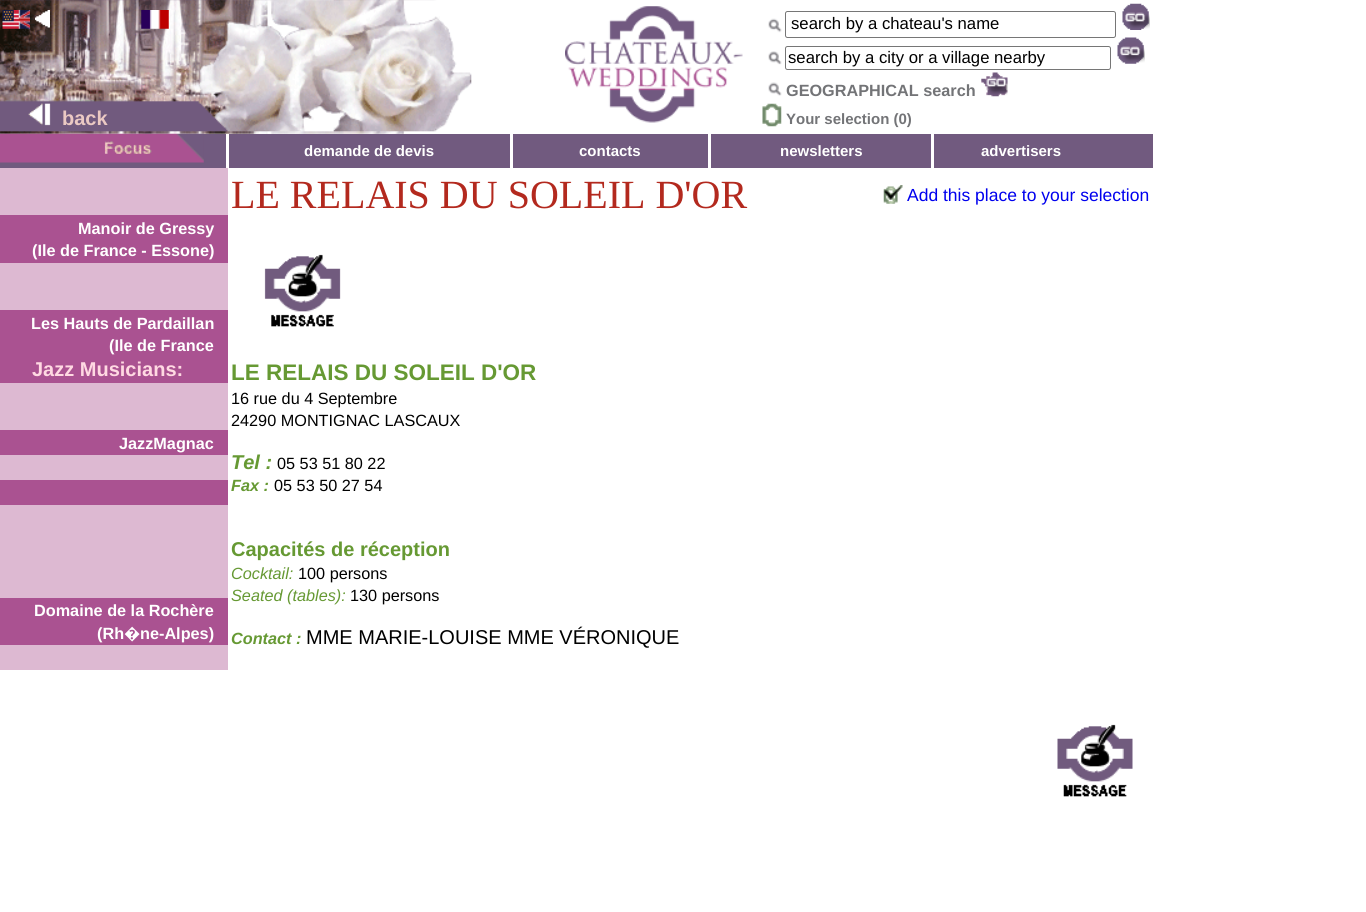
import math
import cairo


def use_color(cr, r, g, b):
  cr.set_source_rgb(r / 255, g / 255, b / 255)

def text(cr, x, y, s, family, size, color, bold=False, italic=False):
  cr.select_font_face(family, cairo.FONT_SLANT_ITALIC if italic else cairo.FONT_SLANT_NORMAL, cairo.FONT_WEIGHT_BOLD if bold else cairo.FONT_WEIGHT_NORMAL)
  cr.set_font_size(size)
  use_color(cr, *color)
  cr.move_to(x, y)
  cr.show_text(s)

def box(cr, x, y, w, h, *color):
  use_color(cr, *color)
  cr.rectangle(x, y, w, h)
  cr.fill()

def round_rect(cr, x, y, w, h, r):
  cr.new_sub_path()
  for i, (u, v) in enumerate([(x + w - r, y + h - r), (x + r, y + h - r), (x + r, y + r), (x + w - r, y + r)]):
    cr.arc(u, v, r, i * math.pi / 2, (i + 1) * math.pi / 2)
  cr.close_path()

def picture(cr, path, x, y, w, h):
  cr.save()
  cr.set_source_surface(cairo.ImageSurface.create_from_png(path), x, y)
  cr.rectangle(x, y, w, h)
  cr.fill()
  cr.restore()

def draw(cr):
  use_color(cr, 255, 255, 255)
  cr.paint()
  picture(cr, "img_01.png", 0, 0, 472, 134)
  picture(cr, "img_02.png", 2, 10, 28, 19)
  picture(cr, "img_03.png", 35, 10, 15, 18)
  picture(cr, "img_04.png", 141, 10, 28, 19)
  picture(cr, "img_05.png", 565, 6, 178, 117)
  picture(cr, "img_06.png", 768, 18, 14, 15)
  round_rect(cr, 785.5, 11.5, 330, 26, 2)
  use_color(cr, 118, 118, 118)
  cr.set_line_width(1)
  cr.stroke()
  picture(cr, "img_07.png", 1122, 3, 28, 27)
  picture(cr, "img_08.png", 768, 51, 14, 14)
  round_rect(cr, 785.5, 46.5, 325, 23, 2)
  cr.stroke()
  picture(cr, "img_09.png", 1117, 37, 28, 27)
  picture(cr, "img_10.png", 768, 82, 14, 14)
  picture(cr, "img_11.png", 981, 72, 27, 25)
  picture(cr, "img_12.png", 762, 103, 20, 24)
  box(cr, 0, 134, 1153, 34, 113, 90, 127)
  picture(cr, "img_13.png", 0, 133, 204, 30)
  box(cr, 226, 134, 3, 34, 255, 255, 255)
  box(cr, 510, 134, 3, 34, 255, 255, 255)
  box(cr, 708, 134, 3, 34, 255, 255, 255)
  box(cr, 931, 134, 3, 34, 255, 255, 255)
  box(cr, 0, 168, 228, 502, 221, 185, 210)
  box(cr, 0, 215, 228, 48, 170, 82, 145)
  box(cr, 0, 310, 228, 48, 170, 82, 145)
  box(cr, 0, 358, 228, 25, 170, 82, 145)
  box(cr, 0, 430, 228, 25, 170, 82, 145)
  box(cr, 0, 480, 228, 25, 170, 82, 145)
  box(cr, 0, 598, 228, 47, 170, 82, 145)
  picture(cr, "img_14.png", 883, 185, 20, 19)
  picture(cr, "img_15.png", 264, 254, 77, 73)
  picture(cr, "img_16.png", 1057, 724, 76, 73)
  text(cr, 62, 125, "back", "Liberation Sans", 20, (235, 201, 195), bold=True)
  text(cr, 791, 29, "search by a chateau's name", "Liberation Sans", 16.7, (0, 0, 0))
  text(cr, 788, 63, "search by a city or a village nearby", "Liberation Sans", 16.7, (0, 0, 0))
  text(cr, 786, 96, "GEOGRAPHICAL search", "Liberation Sans", 16.25, (115, 116, 119), bold=True)
  text(cr, 786, 124, "Your selection (0)", "Liberation Sans", 15, (115, 116, 119), bold=True)
  text(cr, 304, 156, "demande de devis", "Liberation Sans", 15, (255, 255, 255), bold=True)
  text(cr, 579, 156, "contacts", "Liberation Sans", 15, (255, 255, 255), bold=True)
  text(cr, 780, 156, "newsletters", "Liberation Sans", 15, (255, 255, 255), bold=True)
  text(cr, 981, 156, "advertisers", "Liberation Sans", 15, (255, 255, 255), bold=True)
  text(cr, 78, 234, "Manoir de Gressy", "Liberation Sans", 16.25, (255, 255, 255), bold=True)
  text(cr, 32, 256, "(Ile de France - Essone)", "Liberation Sans", 16.25, (255, 255, 255), bold=True)
  text(cr, 31, 329, "Les Hauts de Pardaillan", "Liberation Sans", 16.25, (255, 255, 255), bold=True)
  text(cr, 109, 351, "(Ile de France", "Liberation Sans", 16.25, (255, 255, 255), bold=True)
  text(cr, 32, 376, "Jazz Musicians:", "Liberation Sans", 20, (255, 217, 226), bold=True)
  text(cr, 119, 449, "JazzMagnac", "Liberation Sans", 16.25, (255, 255, 255), bold=True)
  text(cr, 34, 616, "Domaine de la Rochère", "Liberation Sans", 16.25, (255, 255, 255), bold=True)
  text(cr, 97, 639, "(Rh", "Liberation Sans", 16.25, (255, 255, 255), bold=True)
  text(cr, 124, 639, "�", "Noto Sans", 16.25, (255, 255, 255), bold=True)
  text(cr, 140, 639, "ne-Alpes)", "Liberation Sans", 16.25, (255, 255, 255), bold=True)
  text(cr, 231, 208, "LE RELAIS DU SOLEIL D'OR", "Liberation Serif", 40, (179, 41, 30))
  text(cr, 907, 201, "Add this place to your selection", "Liberation Sans", 17.5, (0, 0, 238))
  text(cr, 231, 380, "LE RELAIS DU SOLEIL D'OR", "Liberation Sans", 22.5, (102, 153, 51), bold=True)
  text(cr, 231, 404, "16 rue du 4 Septembre", "Liberation Sans", 16.25, (0, 0, 0))
  text(cr, 231, 426, "24290 MONTIGNAC LASCAUX", "Liberation Sans", 16.25, (0, 0, 0))
  text(cr, 231, 469, "Tel :", "Liberation Sans", 20, (102, 153, 51), bold=True, italic=True)
  text(cr, 277, 469, "05 53 51 80 22", "Liberation Sans", 16.25, (0, 0, 0))
  text(cr, 231, 491, "Fax :", "Liberation Sans", 16.25, (102, 153, 51), bold=True, italic=True)
  text(cr, 274, 491, "05 53 50 27 54", "Liberation Sans", 16.25, (0, 0, 0))
  text(cr, 231, 556, "Capacités de réception", "Liberation Sans", 20, (102, 153, 51), bold=True)
  text(cr, 231, 579, "Cocktail:", "Liberation Sans", 16.25, (102, 153, 51), italic=True)
  text(cr, 298, 579, "100 persons", "Liberation Sans", 16.25, (0, 0, 0))
  text(cr, 231, 601, "Seated (tables):", "Liberation Sans", 16.25, (102, 153, 51), italic=True)
  text(cr, 350, 601, "130 persons", "Liberation Sans", 16.25, (0, 0, 0))
  text(cr, 231, 644, "Contact :", "Liberation Sans", 16.25, (102, 153, 51), bold=True, italic=True)
  text(cr, 306, 644, "MME MARIE-LOUISE MME VÉRONIQUE", "Liberation Sans", 20, (0, 0, 0))


surface = cairo.ImageSurface(cairo.FORMAT_RGB24, 1366, 912)
cr = cairo.Context(surface)
options = cairo.FontOptions()
options.set_hint_metrics(cairo.HINT_METRICS_OFF)
options.set_hint_style(cairo.HINT_STYLE_NONE)
cr.set_font_options(options)
cr.set_miter_limit(4)
draw(cr)
surface.write_to_png("out.png")
